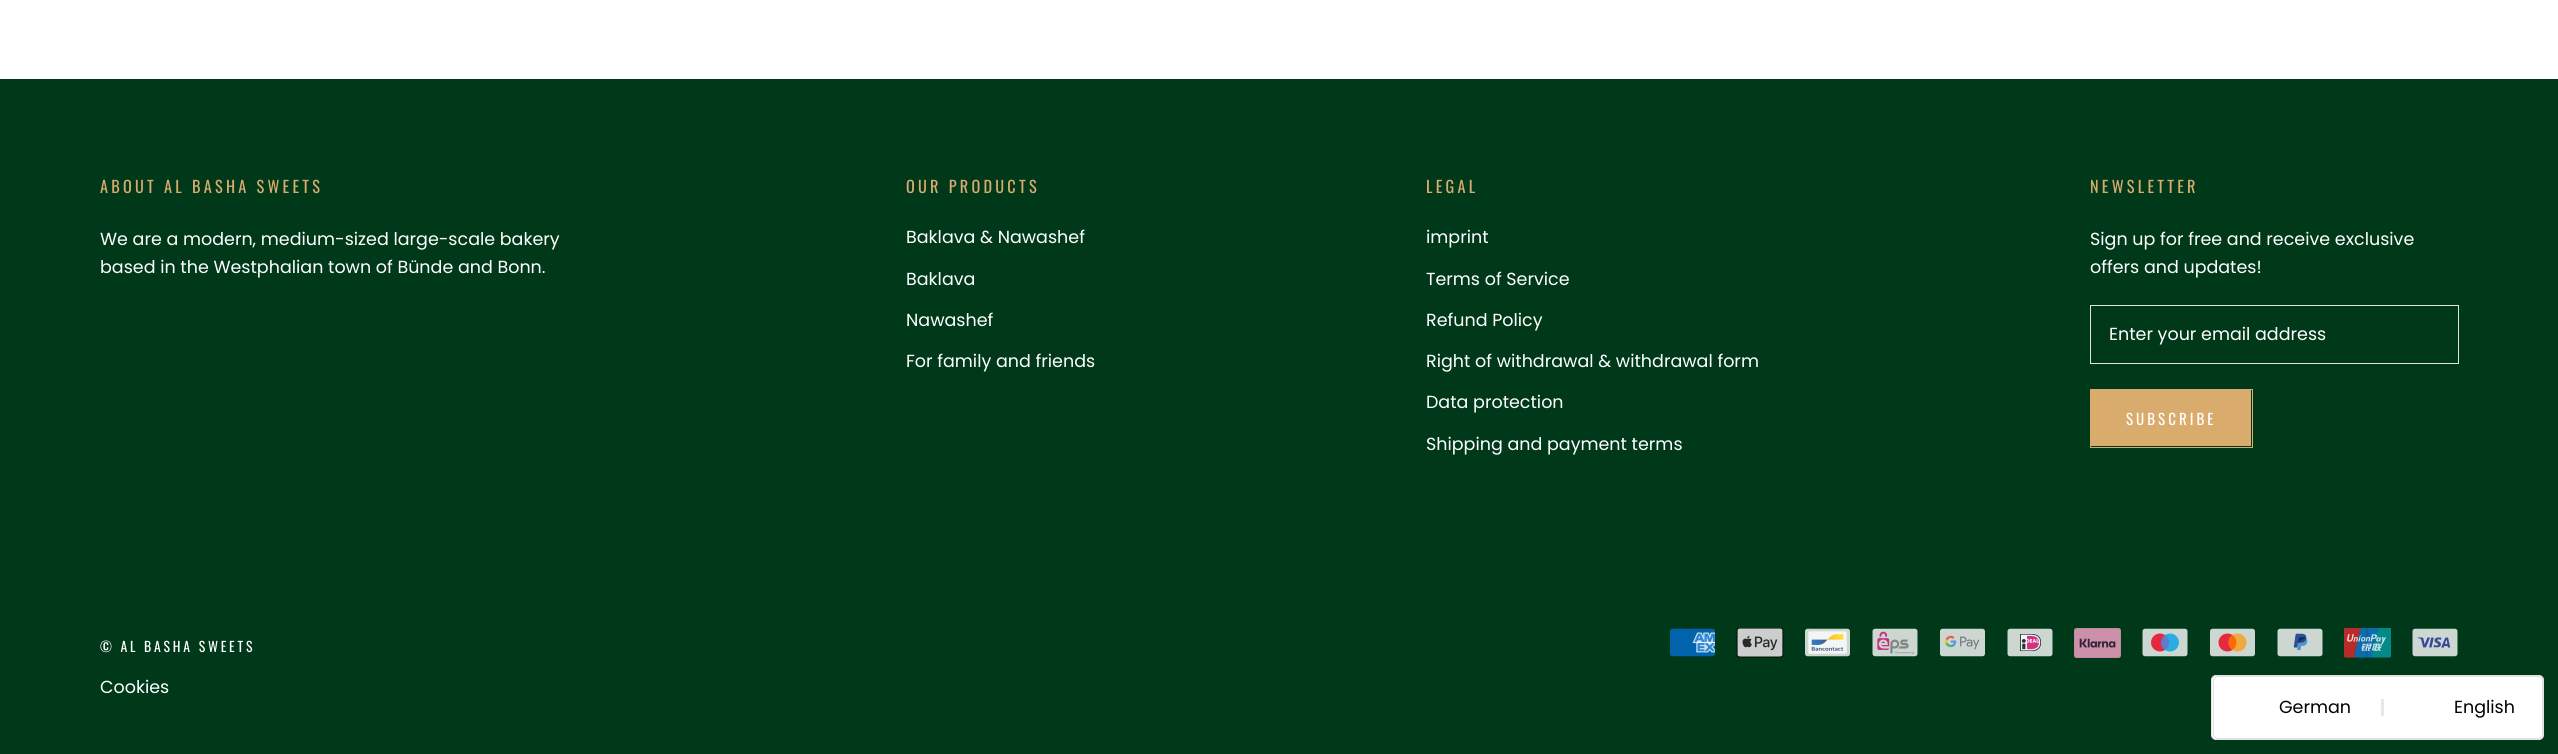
import math
import cairo


def use_color(cr, r, g, b):
  cr.set_source_rgb(r / 255, g / 255, b / 255)

def text(cr, x, y, s, family, size, color, bold=False, italic=False):
  cr.select_font_face(family, cairo.FONT_SLANT_ITALIC if italic else cairo.FONT_SLANT_NORMAL, cairo.FONT_WEIGHT_BOLD if bold else cairo.FONT_WEIGHT_NORMAL)
  cr.set_font_size(size)
  use_color(cr, *color)
  cr.move_to(x, y)
  cr.show_text(s)

def spaced_text(cr, x, y, s, letter, word):
  cr.move_to(x, y)
  for ch in s:
    cr.show_text(ch)
    cr.rel_move_to(letter + word * (ch == ' '), 0)

def box(cr, x, y, w, h, *color):
  use_color(cr, *color)
  cr.rectangle(x, y, w, h)
  cr.fill()

def round_rect(cr, x, y, w, h, r):
  cr.new_sub_path()
  for i, (u, v) in enumerate([(x + w - r, y + h - r), (x + r, y + h - r), (x + r, y + r), (x + w - r, y + r)]):
    cr.arc(u, v, r, i * math.pi / 2, (i + 1) * math.pi / 2)
  cr.close_path()

def picture(cr, path, x, y, w, h):
  cr.save()
  cr.set_source_surface(cairo.ImageSurface.create_from_png(path), x, y)
  cr.rectangle(x, y, w, h)
  cr.fill()
  cr.restore()

def draw(cr):
  use_color(cr, 255, 255, 255)
  cr.paint()
  box(cr, 0, 79, 2558, 675, 0, 57, 26)
  cr.rectangle(2090.5, 305.5, 368, 58)
  use_color(cr, 227, 227, 227)
  cr.set_line_width(1)
  cr.stroke()
  cr.rectangle(2090.5, 389.5, 162, 58)
  use_color(cr, 217, 171, 109)
  cr.stroke()
  box(cr, 2091, 390, 160, 56, 217, 171, 109)
  picture(cr, "img_01.png", 1670, 628, 45, 29)
  picture(cr, "img_02.png", 1736, 628, 48, 30)
  picture(cr, "img_03.png", 1805, 628, 45, 29)
  picture(cr, "img_04.png", 1872, 628, 46, 29)
  picture(cr, "img_05.png", 1940, 628, 45, 29)
  picture(cr, "img_06.png", 2007, 628, 46, 29)
  picture(cr, "img_07.png", 2074, 628, 47, 30)
  picture(cr, "img_08.png", 2142, 628, 46, 29)
  picture(cr, "img_09.png", 2210, 628, 45, 29)
  picture(cr, "img_10.png", 2277, 628, 46, 29)
  picture(cr, "img_11.png", 2344, 628, 47, 30)
  picture(cr, "img_12.png", 2412, 628, 46, 29)
  use_color(cr, 255, 255, 255)
  round_rect(cr, 2211.5, 675.5, 332, 64, 4.5)
  cr.fill_preserve()
  use_color(cr, 224, 226, 228)
  cr.stroke()
  use_color(cr, 255, 255, 255)
  round_rect(cr, 2213.5, 676.5, 329, 62, 4.5)
  cr.fill_preserve()
  use_color(cr, 224, 224, 224)
  cr.stroke()
  box(cr, 2381, 699, 3, 17, 231, 231, 233)
  cr.select_font_face("Oswald")
  cr.set_font_size(16.25)
  use_color(cr, 217, 171, 109)
  spaced_text(cr, 100, 193, "ABOUT AL BASHA SWEETS", 3.25, 0)
  text(cr, 100, 245, "We are a modern, medium-sized large-scale bakery", "Poppins", 17.5, (255, 255, 255))
  text(cr, 100, 273, "based in the Westphalian town of Bünde and Bonn.", "Poppins", 17.5, (255, 255, 255))
  cr.select_font_face("Oswald")
  cr.set_font_size(16.25)
  use_color(cr, 217, 171, 109)
  spaced_text(cr, 906, 193, "OUR PRODUCTS", 3.25, 0)
  text(cr, 906, 243, "Baklava & Nawashef", "Poppins", 17.5, (255, 255, 255))
  text(cr, 906, 285, "Baklava", "Poppins", 17.5, (255, 255, 255))
  text(cr, 906, 326, "Nawashef", "Poppins", 17.5, (255, 255, 255))
  text(cr, 906, 367, "For family and friends", "Poppins", 17.5, (255, 255, 255))
  cr.select_font_face("Oswald")
  cr.set_font_size(16.25)
  use_color(cr, 217, 171, 109)
  spaced_text(cr, 1426, 193, "LEGAL", 3.25, 0)
  text(cr, 1426, 243, "imprint", "Poppins", 17.5, (255, 255, 255))
  text(cr, 1426, 285, "Terms of Service", "Poppins", 17.5, (255, 255, 255))
  text(cr, 1426, 326, "Refund Policy", "Poppins", 17.5, (255, 255, 255))
  text(cr, 1426, 367, "Right of withdrawal & withdrawal form", "Poppins", 17.5, (255, 255, 255))
  text(cr, 1426, 408, "Data protection", "Poppins", 17.5, (255, 255, 255))
  text(cr, 1426, 450, "Shipping and payment terms", "Poppins", 17.5, (255, 255, 255))
  cr.select_font_face("Oswald")
  cr.set_font_size(16.25)
  use_color(cr, 217, 171, 109)
  spaced_text(cr, 2090, 193, "NEWSLETTER", 3.25, 0)
  text(cr, 2090, 245, "Sign up for free and receive exclusive", "Poppins", 17.5, (255, 255, 255))
  text(cr, 2090, 273, "offers and updates!", "Poppins", 17.5, (255, 255, 255))
  text(cr, 2109, 340, "Enter your email address", "Poppins", 17.5, (255, 255, 255))
  cr.select_font_face("Oswald")
  cr.set_font_size(15)
  spaced_text(cr, 2126, 425, "SUBSCRIBE", 3, 0)
  cr.set_font_size(13.75)
  spaced_text(cr, 100, 652, "© AL BASHA SWEETS", 2.75, 0)
  text(cr, 100, 693, "Cookies", "Poppins", 17.5, (255, 255, 255))
  text(cr, 2279, 713, "German", "Poppins", 17.5, (0, 0, 0))
  text(cr, 2454, 713, "English", "Poppins", 17.5, (0, 0, 0))


surface = cairo.ImageSurface(cairo.FORMAT_RGB24, 2558, 754)
cr = cairo.Context(surface)
options = cairo.FontOptions()
options.set_hint_metrics(cairo.HINT_METRICS_OFF)
options.set_hint_style(cairo.HINT_STYLE_NONE)
cr.set_font_options(options)
cr.set_miter_limit(4)
draw(cr)
surface.write_to_png("out.png")
